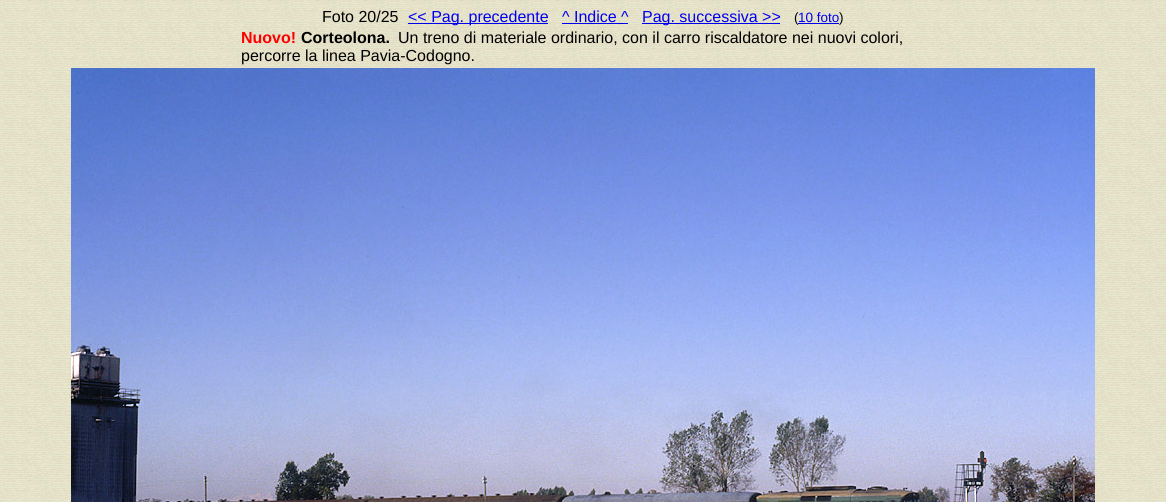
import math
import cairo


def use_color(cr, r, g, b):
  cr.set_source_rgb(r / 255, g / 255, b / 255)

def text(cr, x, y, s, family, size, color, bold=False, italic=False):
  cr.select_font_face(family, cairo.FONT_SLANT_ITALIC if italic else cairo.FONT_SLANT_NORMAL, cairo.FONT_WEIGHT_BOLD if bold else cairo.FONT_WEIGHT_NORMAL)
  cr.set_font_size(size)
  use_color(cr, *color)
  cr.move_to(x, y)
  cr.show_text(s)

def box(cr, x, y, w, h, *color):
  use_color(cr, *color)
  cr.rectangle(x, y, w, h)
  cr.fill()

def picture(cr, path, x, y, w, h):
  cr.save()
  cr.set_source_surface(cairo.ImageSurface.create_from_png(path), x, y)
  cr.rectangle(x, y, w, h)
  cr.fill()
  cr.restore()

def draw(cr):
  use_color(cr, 255, 255, 255)
  cr.paint()
  picture(cr, "img_01.png", 0, 0, 1166, 502)
  box(cr, 408, 23, 140, 1, 0, 0, 238)
  box(cr, 562, 23, 66, 1, 0, 0, 238)
  box(cr, 642, 23, 138, 1, 0, 0, 238)
  picture(cr, "img_02.png", 71, 68, 1024, 434)
  text(cr, 322, 22, "Foto 20/25", "Liberation Sans", 16, (0, 0, 0))
  text(cr, 408, 22, "<< Pag. precedente", "Liberation Sans", 16, (0, 0, 238))
  text(cr, 562, 22, "^ Indice ^", "Liberation Sans", 16, (0, 0, 238))
  text(cr, 642, 22, "Pag. successiva >>", "Liberation Sans", 16, (0, 0, 238))
  text(cr, 794, 22, "(", "Liberation Sans", 13.5, (0, 0, 0))
  box(cr, 798, 23, 41, 1, 0, 0, 238)
  text(cr, 798, 22, "10 foto", "Liberation Sans", 13.5, (0, 0, 238))
  text(cr, 839, 22, ")", "Liberation Sans", 13.5, (0, 0, 0))
  text(cr, 241, 43, "Nuovo!", "Liberation Sans", 16, (255, 0, 0), bold=True)
  text(cr, 301, 43, "Corteolona.", "Liberation Sans", 16, (0, 0, 0), bold=True)
  text(cr, 398, 43, "Un treno di materiale ordinario, con il carro riscaldatore nei nuovi colori,", "Liberation Sans", 16, (0, 0, 0))
  text(cr, 241, 61, "percorre la linea Pavia-Codogno.", "Liberation Sans", 16, (0, 0, 0))


surface = cairo.ImageSurface(cairo.FORMAT_RGB24, 1166, 502)
cr = cairo.Context(surface)
options = cairo.FontOptions()
options.set_hint_metrics(cairo.HINT_METRICS_OFF)
options.set_hint_style(cairo.HINT_STYLE_NONE)
cr.set_font_options(options)
cr.set_miter_limit(4)
draw(cr)
surface.write_to_png("out.png")
